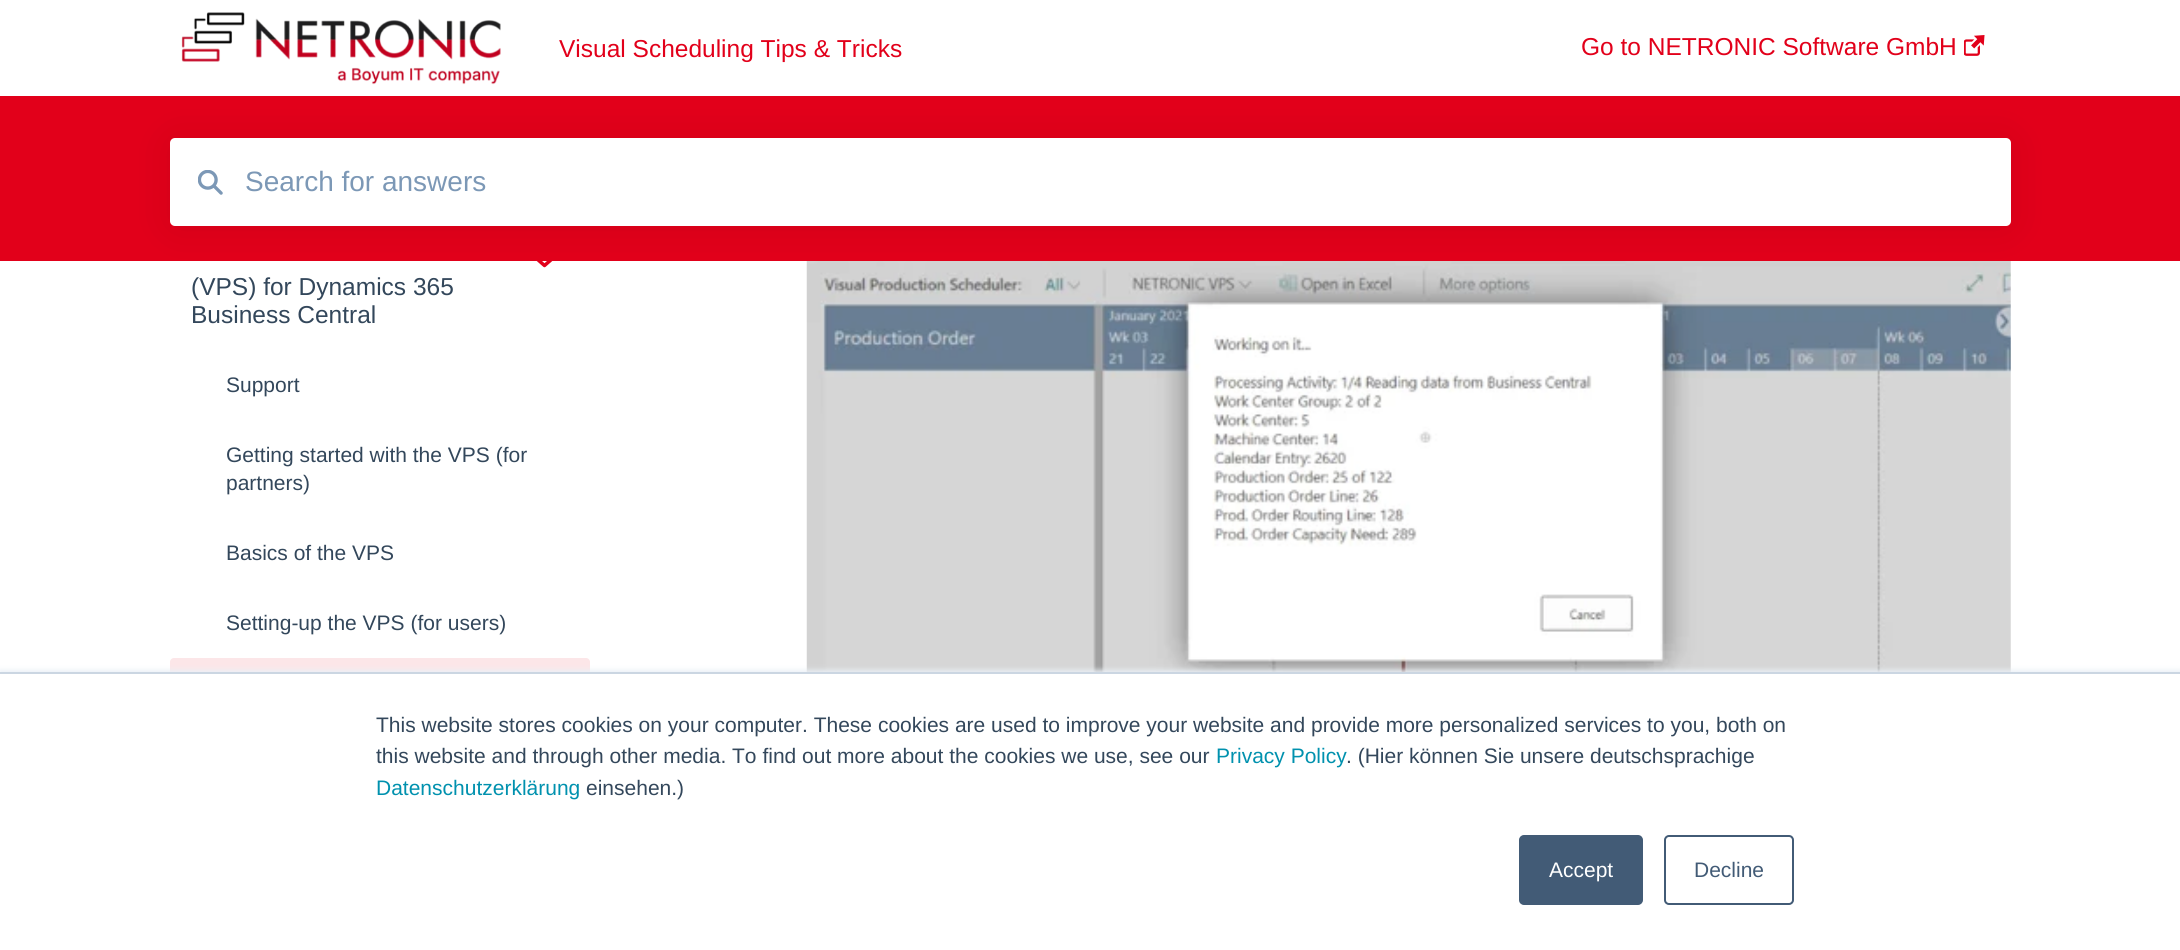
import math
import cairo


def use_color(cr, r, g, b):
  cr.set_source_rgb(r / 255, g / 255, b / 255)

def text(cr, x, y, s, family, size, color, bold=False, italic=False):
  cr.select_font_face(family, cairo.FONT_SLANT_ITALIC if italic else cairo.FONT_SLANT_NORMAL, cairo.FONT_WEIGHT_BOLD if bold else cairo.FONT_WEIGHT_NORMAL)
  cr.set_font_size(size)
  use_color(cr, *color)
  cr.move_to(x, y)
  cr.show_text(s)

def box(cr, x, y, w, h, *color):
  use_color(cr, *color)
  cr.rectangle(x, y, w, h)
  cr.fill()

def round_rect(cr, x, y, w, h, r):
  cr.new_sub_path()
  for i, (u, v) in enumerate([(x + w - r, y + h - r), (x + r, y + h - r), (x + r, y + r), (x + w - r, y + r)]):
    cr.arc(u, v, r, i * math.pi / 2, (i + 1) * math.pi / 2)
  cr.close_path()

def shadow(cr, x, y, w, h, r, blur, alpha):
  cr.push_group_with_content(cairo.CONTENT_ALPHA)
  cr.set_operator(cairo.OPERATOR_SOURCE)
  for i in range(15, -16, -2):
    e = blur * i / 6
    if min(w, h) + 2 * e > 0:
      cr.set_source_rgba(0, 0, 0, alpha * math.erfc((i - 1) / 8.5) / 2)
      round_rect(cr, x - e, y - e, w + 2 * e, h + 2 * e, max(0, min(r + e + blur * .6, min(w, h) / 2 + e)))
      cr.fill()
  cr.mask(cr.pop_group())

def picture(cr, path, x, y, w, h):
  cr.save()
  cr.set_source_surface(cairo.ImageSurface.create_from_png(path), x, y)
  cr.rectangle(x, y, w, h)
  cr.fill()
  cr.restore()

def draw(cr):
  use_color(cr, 255, 255, 255)
  cr.paint()
  cr.new_path()
  cr.move_to(552.5, 258.5)
  cr.line_to(544.5, 265.5)
  cr.line_to(536.5, 258.5)
  use_color(cr, 226, 0, 26)
  cr.set_line_width(3.5)
  cr.set_line_cap(cairo.LINE_CAP_ROUND)
  cr.set_line_join(cairo.LINE_JOIN_ROUND)
  cr.stroke()
  box(cr, 0, 96, 2180, 165, 226, 0, 26)
  picture(cr, "img_04.png", 806, 261, 1205, 411)
  use_color(cr, 0, 0, 0)
  shadow(cr, 170, 140, 1841, 88, 5, 21, 0.08)
  picture(cr, "img_01.png", 181, 12, 320, 73)
  picture(cr, "img_02.png", 1964, 35, 21, 21)
  use_color(cr, 255, 255, 255)
  round_rect(cr, 170, 138, 1841, 88, 5)
  cr.fill()
  picture(cr, "img_03.png", 198, 170, 25, 25)
  use_color(cr, 252, 230, 232)
  round_rect(cr, 170, 658, 420, 98, 4)
  cr.fill()
  use_color(cr, 234, 240, 246)
  shadow(cr, 0, 670, 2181, 279, 0, 2.5, 1)
  box(cr, 0, 674, 2180, 276, 255, 255, 255)
  box(cr, 0, 672, 2180, 2, 203, 214, 226)
  use_color(cr, 66, 91, 118)
  round_rect(cr, 1520, 836, 122, 68, 4)
  cr.fill_preserve()
  cr.set_line_width(2)
  cr.set_line_cap(cairo.LINE_CAP_BUTT)
  cr.set_line_join(cairo.LINE_JOIN_MITER)
  cr.stroke()
  round_rect(cr, 1665, 836, 128, 68, 4)
  cr.stroke()
  text(cr, 559, 57, "Visual Scheduling Tips & Tricks", "Liberation Sans", 24.5, (226, 0, 26))
  text(cr, 1581, 55, "Go to NETRONIC Software GmbH", "Liberation Sans", 24.5, (226, 0, 26))
  text(cr, 245, 191, "Search for answers", "Liberation Sans", 28, (124, 152, 182))
  text(cr, 191, 295, "(VPS) for Dynamics 365", "Liberation Sans", 24.5, (51, 71, 91))
  text(cr, 191, 323, "Business Central", "Liberation Sans", 24.5, (51, 71, 91))
  text(cr, 226, 392, "Support", "Liberation Sans", 21, (51, 71, 91))
  text(cr, 226, 462, "Getting started with the VPS (for", "Liberation Sans", 21, (51, 71, 91))
  text(cr, 226, 490, "partners)", "Liberation Sans", 21, (51, 71, 91))
  text(cr, 226, 560, "Basics of the VPS", "Liberation Sans", 21, (51, 71, 91))
  text(cr, 226, 630, "Setting-up the VPS (for users)", "Liberation Sans", 21, (51, 71, 91))
  text(cr, 376, 732, "This website stores cookies on your computer. These cookies are used to improve your website and provide more personalized services to you, both on", "Liberation Sans", 21, (51, 71, 91))
  text(cr, 376, 763, "this website and through other media. To find out more about the cookies we use, see our", "Liberation Sans", 21, (51, 71, 91))
  text(cr, 1216, 763, "Privacy Policy", "Liberation Sans", 21, (0, 145, 174))
  text(cr, 1346, 763, ". (Hier können Sie unsere deutschsprachige", "Liberation Sans", 21, (51, 71, 91))
  text(cr, 376, 795, "Datenschutzerklärung", "Liberation Sans", 21, (0, 145, 174))
  text(cr, 586, 795, "einsehen.)", "Liberation Sans", 21, (51, 71, 91))
  text(cr, 1549, 877, "Accept", "Liberation Sans", 21, (255, 255, 255))
  text(cr, 1694, 877, "Decline", "Liberation Sans", 21, (66, 91, 118))


surface = cairo.ImageSurface(cairo.FORMAT_RGB24, 2180, 950)
cr = cairo.Context(surface)
options = cairo.FontOptions()
options.set_hint_metrics(cairo.HINT_METRICS_OFF)
options.set_hint_style(cairo.HINT_STYLE_NONE)
cr.set_font_options(options)
cr.set_miter_limit(4)
draw(cr)
surface.write_to_png("out.png")
